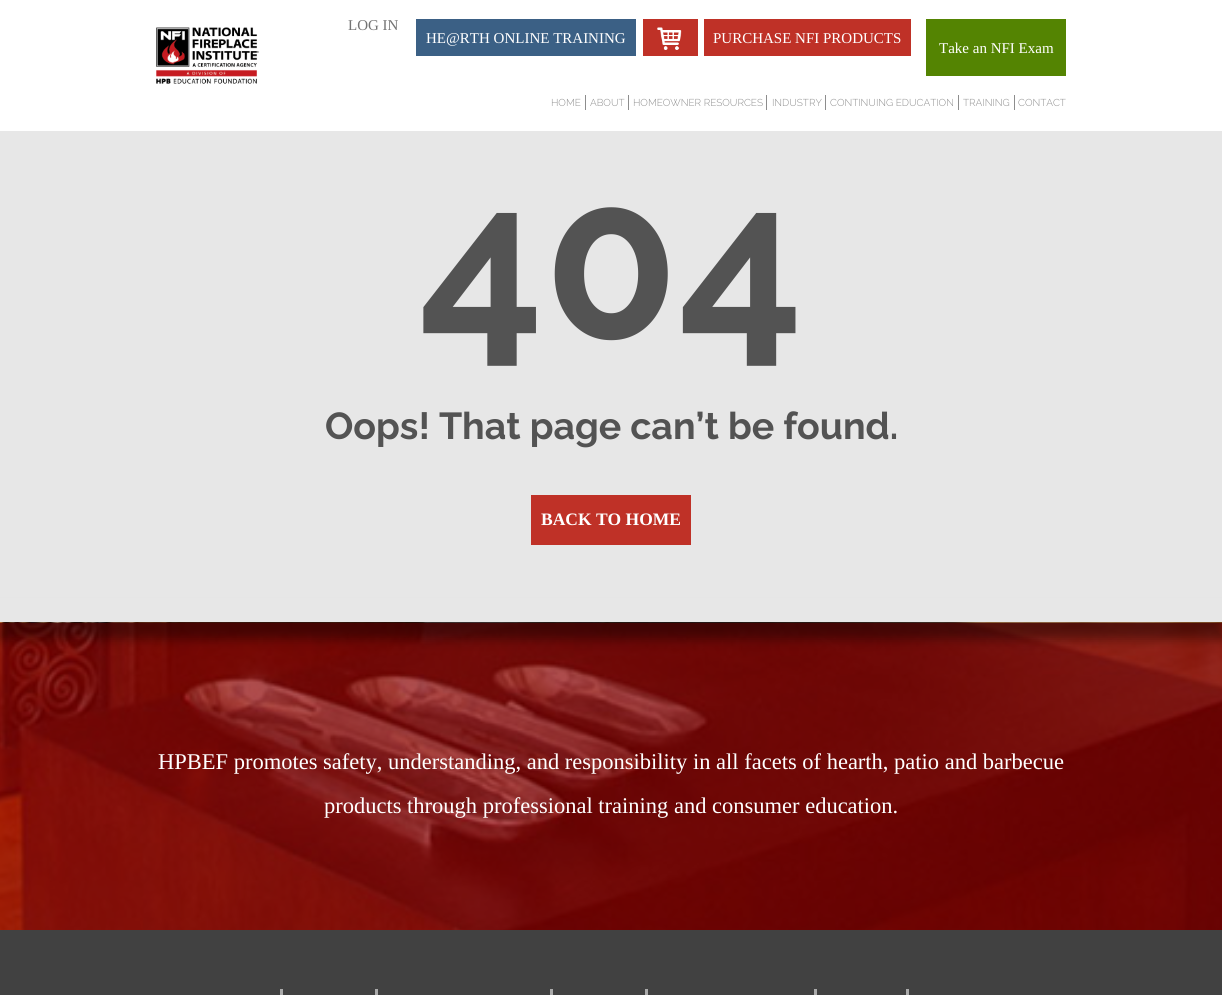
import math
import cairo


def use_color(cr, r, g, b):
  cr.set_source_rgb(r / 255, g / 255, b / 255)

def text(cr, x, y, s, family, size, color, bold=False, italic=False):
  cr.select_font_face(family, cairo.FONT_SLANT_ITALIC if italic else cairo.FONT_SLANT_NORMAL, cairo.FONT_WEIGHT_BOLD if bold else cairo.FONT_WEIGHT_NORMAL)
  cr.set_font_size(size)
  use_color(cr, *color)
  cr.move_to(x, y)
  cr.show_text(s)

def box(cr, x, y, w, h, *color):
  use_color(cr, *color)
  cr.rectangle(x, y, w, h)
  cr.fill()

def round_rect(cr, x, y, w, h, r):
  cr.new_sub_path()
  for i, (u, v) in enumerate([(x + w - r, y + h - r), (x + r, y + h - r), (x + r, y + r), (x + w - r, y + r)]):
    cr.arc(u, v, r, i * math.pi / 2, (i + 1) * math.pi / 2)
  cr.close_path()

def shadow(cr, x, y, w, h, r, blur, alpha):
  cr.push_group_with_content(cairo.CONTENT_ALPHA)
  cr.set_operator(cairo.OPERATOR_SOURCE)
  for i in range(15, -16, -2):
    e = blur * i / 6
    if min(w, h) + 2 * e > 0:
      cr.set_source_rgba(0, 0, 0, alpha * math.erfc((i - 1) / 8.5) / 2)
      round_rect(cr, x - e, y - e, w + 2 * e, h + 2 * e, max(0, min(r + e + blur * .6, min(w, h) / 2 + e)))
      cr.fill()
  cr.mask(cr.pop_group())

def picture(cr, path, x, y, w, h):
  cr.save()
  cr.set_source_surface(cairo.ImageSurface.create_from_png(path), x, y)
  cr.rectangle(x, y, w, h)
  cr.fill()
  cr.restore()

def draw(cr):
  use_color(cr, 231, 231, 231)
  cr.paint()
  box(cr, 0, 0, 1222, 131, 255, 255, 255)
  picture(cr, "img_01.png", 156, 27, 103, 57)
  box(cr, 643, 19, 55, 37, 191, 49, 39)
  picture(cr, "img_02.png", 657, 27, 25, 23)
  box(cr, 416, 19, 220, 37, 59, 96, 133)
  box(cr, 704, 19, 207, 37, 191, 49, 39)
  box(cr, 926, 19, 140, 57, 84, 132, 2)
  box(cr, 585, 95, 1, 15, 141, 141, 141)
  box(cr, 628, 95, 1, 15, 141, 141, 141)
  box(cr, 766, 95, 1, 15, 141, 141, 141)
  box(cr, 825, 95, 1, 15, 141, 141, 141)
  box(cr, 958, 95, 1, 15, 141, 141, 141)
  box(cr, 1014, 95, 1, 15, 141, 141, 141)
  box(cr, 531, 495, 160, 50, 191, 49, 39)
  picture(cr, "img_03.png", 0, 622, 1222, 308)
  cr.save()
  cr.set_fill_rule(cairo.FILL_RULE_EVEN_ODD)
  cr.new_path()
  cr.move_to(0, 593)
  cr.line_to(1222, 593)
  cr.line_to(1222, 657)
  cr.line_to(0, 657)
  cr.close_path()
  cr.move_to(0, 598)
  cr.line_to(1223, 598)
  cr.line_to(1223, 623)
  cr.line_to(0, 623)
  cr.close_path()
  cr.clip()
  use_color(cr, 0, 0, 0)
  shadow(cr, -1, 611, 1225, 28, 0, 5.5, 0.4)
  cr.restore()
  box(cr, 0, 930, 1222, 65, 65, 65, 65)
  box(cr, 280, 989, 3, 6, 171, 171, 171)
  box(cr, 375, 989, 3, 6, 171, 171, 171)
  box(cr, 550, 989, 3, 6, 171, 171, 171)
  box(cr, 645, 989, 3, 6, 171, 171, 171)
  box(cr, 814, 989, 3, 6, 171, 171, 171)
  box(cr, 906, 989, 3, 6, 171, 171, 171)
  text(cr, 348, 30, "LOG IN", "Liberation Serif", 15, (115, 115, 115))
  text(cr, 426, 43, "HE@RTH ONLINE TRAINING", "Liberation Serif", 15, (255, 255, 255))
  text(cr, 713, 43, "PURCHASE NFI PRODUCTS", "Liberation Serif", 15, (255, 255, 255))
  text(cr, 939, 53, "Take an NFI Exam", "Liberation Serif", 15, (255, 255, 255))
  text(cr, 551, 106, "HOME", "Raleway Light", 10, (141, 141, 141))
  text(cr, 590, 106, "ABOUT", "Raleway Light", 10, (141, 141, 141))
  text(cr, 633, 106, "HOMEOWNER RESOURCES", "Raleway Light", 10, (141, 141, 141))
  text(cr, 772, 106, "INDUSTRY", "Raleway Light", 10, (141, 141, 141))
  text(cr, 830, 106, "CONTINUING EDUCATION", "Raleway Light", 10, (141, 141, 141))
  text(cr, 963, 106, "TRAINING", "Raleway Light", 10, (141, 141, 141))
  text(cr, 1018, 106, "CONTACT", "Raleway Light", 10, (141, 141, 141))
  text(cr, 419, 338, "404", "Raleway", 219, (83, 83, 83), bold=True)
  text(cr, 325, 439, "Oops! That page can’t be found.", "Raleway", 37.5, (83, 83, 83), bold=True)
  text(cr, 541, 525, "BACK TO HOME", "Liberation Serif", 17.5, (255, 255, 255), bold=True)
  text(cr, 158, 769, "HPBEF promotes safety, understanding, and responsibility in all facets of hearth, patio and barbecue", "Liberation Serif", 22.5, (255, 255, 255))
  text(cr, 324, 813, "products through professional training and consumer education.", "Liberation Serif", 22.5, (255, 255, 255))


surface = cairo.ImageSurface(cairo.FORMAT_RGB24, 1222, 995)
cr = cairo.Context(surface)
options = cairo.FontOptions()
options.set_hint_metrics(cairo.HINT_METRICS_OFF)
options.set_hint_style(cairo.HINT_STYLE_NONE)
cr.set_font_options(options)
cr.set_miter_limit(4)
draw(cr)
surface.write_to_png("out.png")
